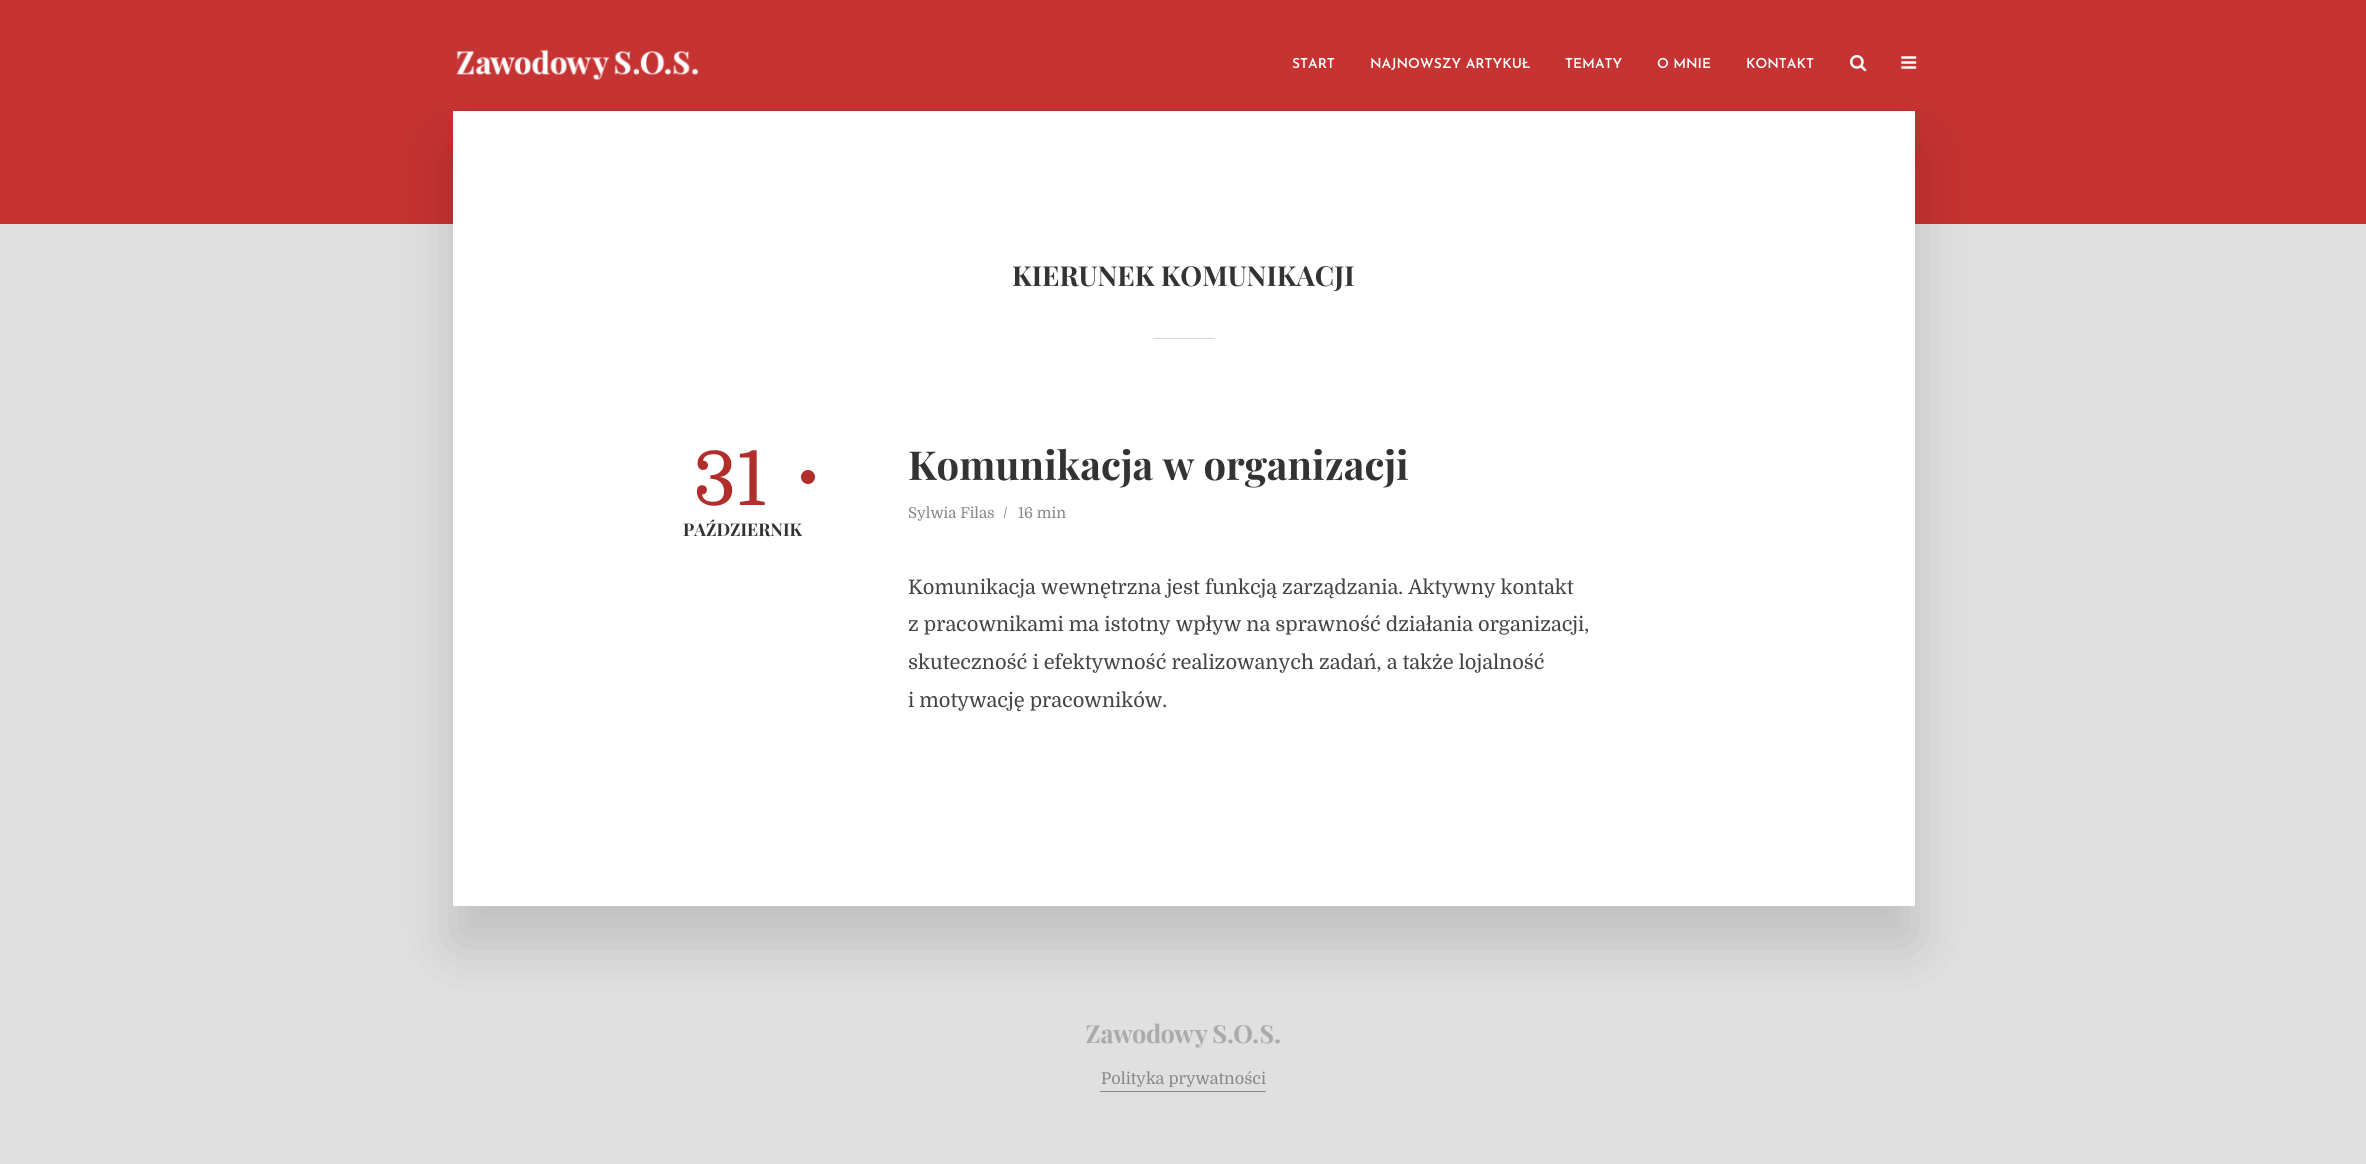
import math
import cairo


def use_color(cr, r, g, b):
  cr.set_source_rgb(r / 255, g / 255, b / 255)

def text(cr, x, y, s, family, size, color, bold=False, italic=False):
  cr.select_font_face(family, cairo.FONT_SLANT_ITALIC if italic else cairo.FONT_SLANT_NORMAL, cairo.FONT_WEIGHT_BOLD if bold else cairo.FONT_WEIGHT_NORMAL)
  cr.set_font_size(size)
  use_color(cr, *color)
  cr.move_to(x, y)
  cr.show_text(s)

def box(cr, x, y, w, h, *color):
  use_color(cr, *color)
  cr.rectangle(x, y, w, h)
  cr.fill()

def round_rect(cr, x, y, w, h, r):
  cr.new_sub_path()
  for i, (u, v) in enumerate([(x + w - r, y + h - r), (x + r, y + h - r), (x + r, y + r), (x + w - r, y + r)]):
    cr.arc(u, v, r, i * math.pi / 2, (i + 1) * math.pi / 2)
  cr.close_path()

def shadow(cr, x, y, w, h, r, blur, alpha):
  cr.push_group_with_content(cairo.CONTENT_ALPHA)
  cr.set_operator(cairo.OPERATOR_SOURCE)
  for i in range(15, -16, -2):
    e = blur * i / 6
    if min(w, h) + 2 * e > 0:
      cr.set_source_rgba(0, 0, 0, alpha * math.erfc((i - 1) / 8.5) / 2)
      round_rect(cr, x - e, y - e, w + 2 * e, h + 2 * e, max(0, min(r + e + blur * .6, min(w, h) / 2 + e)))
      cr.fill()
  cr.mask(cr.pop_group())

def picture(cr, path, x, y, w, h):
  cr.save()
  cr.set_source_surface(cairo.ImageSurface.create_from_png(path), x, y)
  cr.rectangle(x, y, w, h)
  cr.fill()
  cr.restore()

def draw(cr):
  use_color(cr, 197, 51, 50)
  cr.paint()
  box(cr, 0, 224, 2366, 940, 224, 224, 224)
  picture(cr, "img_04.png", 1086, 1023, 194, 25)
  use_color(cr, 1, 1, 1)
  shadow(cr, 453, 149, 1462, 795, 0, 31, 0.15)
  picture(cr, "img_01.png", 456, 49, 243, 31)
  picture(cr, "img_02.png", 1850, 55, 17, 17)
  picture(cr, "img_03.png", 1901, 56, 16, 13)
  box(cr, 453, 111, 1462, 795, 255, 255, 255)
  box(cr, 1153, 338, 62, 1, 214, 214, 214)
  use_color(cr, 177, 46, 44)
  cr.arc(808, 477, 7, 0, 2 * math.pi)
  cr.fill()
  box(cr, 1100, 1091, 166, 1, 136, 136, 136)
  text(cr, 1292, 68, "START", "Josefin Sans SemiBold", 13.75, (255, 255, 255))
  text(cr, 1370, 68, "NAJNOWSZY ARTYKUŁ", "Josefin Sans SemiBold", 13.75, (255, 255, 255))
  text(cr, 1565, 68, "TEMATY", "Josefin Sans SemiBold", 13.75, (255, 255, 255))
  text(cr, 1657, 68, "O MNIE", "Josefin Sans SemiBold", 13.75, (255, 255, 255))
  text(cr, 1746, 68, "KONTAKT", "Josefin Sans SemiBold", 13.75, (255, 255, 255))
  text(cr, 1012, 286, "KIERUNEK KOMUNIKACJI", "Playfair Display", 27.5, (51, 51, 51), bold=True)
  text(cr, 693, 505, "31", "Domine", 75, (177, 46, 44))
  text(cr, 683, 536, "PAŹDZIERNIK", "Playfair Display", 17.5, (51, 51, 51), bold=True)
  text(cr, 908, 480, "Komunikacja w organizacji", "Playfair Display", 40, (51, 51, 51), bold=True)
  text(cr, 908, 518, "Sylwia Filas", "Domine", 15, (136, 136, 136))
  text(cr, 1003, 518, "/", "Domine", 15, (136, 136, 136))
  text(cr, 1018, 518, "16 min", "Domine", 15, (136, 136, 136))
  text(cr, 908, 594, "Komunikacja wewnętrzna jest funkcją zarządzania. Aktywny kontakt", "Domine", 20, (68, 68, 68))
  text(cr, 908, 631, "z pracownikami ma istotny wpływ na sprawność działania organizacji,", "Domine", 20, (68, 68, 68))
  text(cr, 908, 669, "skuteczność i efektywność realizowanych zadań, a także lojalność", "Domine", 20, (68, 68, 68))
  text(cr, 908, 707, "i motywację pracowników.", "Domine", 20, (68, 68, 68))
  text(cr, 1101, 1084, "Polityka prywatności", "Domine", 16.25, (136, 136, 136))


surface = cairo.ImageSurface(cairo.FORMAT_RGB24, 2366, 1164)
cr = cairo.Context(surface)
options = cairo.FontOptions()
options.set_hint_metrics(cairo.HINT_METRICS_OFF)
options.set_hint_style(cairo.HINT_STYLE_NONE)
cr.set_font_options(options)
cr.set_miter_limit(4)
draw(cr)
surface.write_to_png("out.png")
